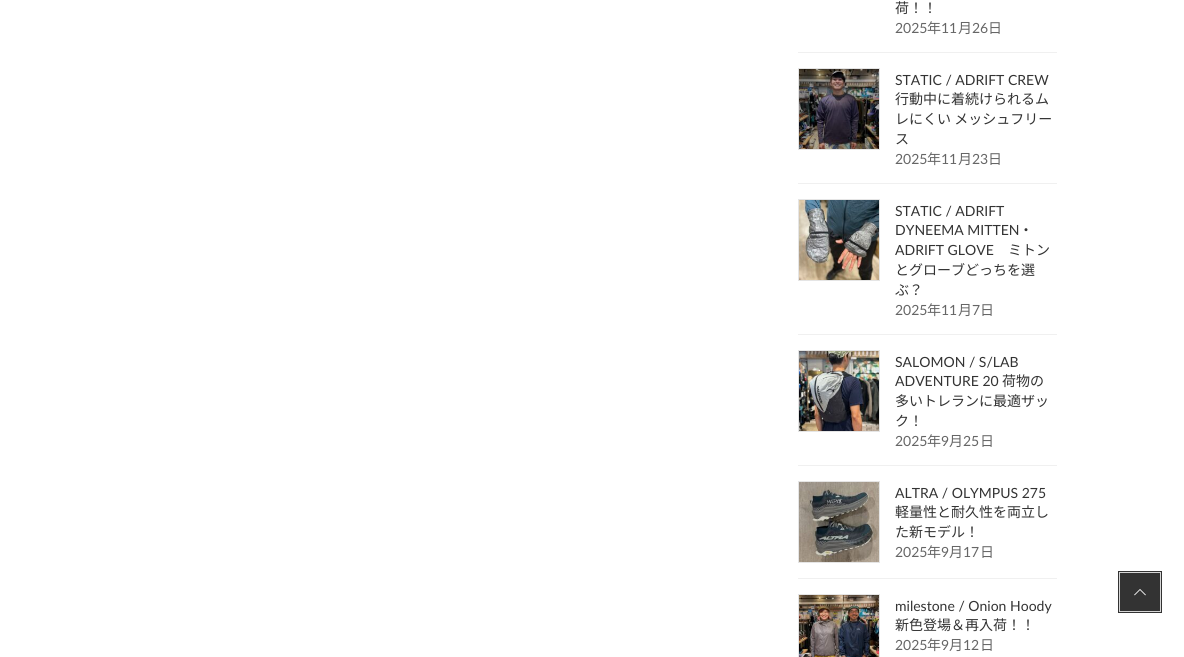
import math
import cairocffi as cairo

surface = cairo.ImageSurface(cairo.FORMAT_RGB24, 1184, 657)
cr = cairo.Context(surface)
options = cairo.FontOptions()
options.set_hint_metrics(cairo.HINT_METRICS_OFF)
options.set_hint_style(cairo.HINT_STYLE_NONE)
cr.set_font_options(options)
cr.set_miter_limit(4)


def use_color(code):
    cr.set_source_rgb(*(v / 255 for v in bytes.fromhex(code[-6:])))


def picture(path, x, y, w, h):
    cr.save()
    cr.set_source_surface(cairo.ImageSurface.create_from_png(path), x, y)
    cr.rectangle(x, y, w, h)
    cr.fill()
    cr.restore()


use_color("#ffffff")
cr.paint()
use_color("#f0f0f0")
cr.rectangle(798, 52, 259, 1)
cr.fill()
cr.select_font_face("Noto Sans JP")
cr.set_font_size(14)
use_color("#333333")
cr.move_to(895, 13)
cr.show_text("荷！！")
cr.select_font_face("Lato")
use_color("#666666")
cr.move_to(895, 33)
cr.show_text("2025")
cr.select_font_face("Noto Sans JP")
cr.move_to(927, 33)
cr.show_text("年")
cr.select_font_face("Lato")
cr.move_to(941, 33)
cr.show_text("11")
cr.select_font_face("Noto Sans JP")
cr.move_to(958, 33)
cr.show_text("月")
cr.select_font_face("Lato")
cr.move_to(972, 33)
cr.show_text("26")
cr.select_font_face("Noto Sans JP")
cr.move_to(988, 33)
cr.show_text("日")
use_color("#f0f0f0")
cr.rectangle(798, 183, 259, 1)
cr.fill()
cr.rectangle(798.5, 68.5, 81, 81)
use_color("#e5e5e5")
cr.set_line_width(1)
cr.stroke()
picture("img1.png", 799, 69, 80, 80)
cr.select_font_face("Lato")
use_color("#333333")
cr.move_to(895, 85)
cr.show_text("STATIC / ADRIFT CREW")
cr.select_font_face("Noto Sans JP")
cr.move_to(895, 104)
cr.show_text("行動中に着続けられるム")
cr.move_to(895, 124)
cr.show_text("レにくい メッシュフリー")
cr.move_to(895, 144)
cr.show_text("ス")
cr.select_font_face("Lato")
use_color("#666666")
cr.move_to(895, 164)
cr.show_text("2025")
cr.select_font_face("Noto Sans JP")
cr.move_to(927, 164)
cr.show_text("年")
cr.select_font_face("Lato")
cr.move_to(941, 164)
cr.show_text("11")
cr.select_font_face("Noto Sans JP")
cr.move_to(958, 164)
cr.show_text("月")
cr.select_font_face("Lato")
cr.move_to(972, 164)
cr.show_text("23")
cr.select_font_face("Noto Sans JP")
cr.move_to(988, 164)
cr.show_text("日")
use_color("#f0f0f0")
cr.rectangle(798, 334, 259, 1)
cr.fill()
cr.rectangle(798.5, 199.5, 81, 81)
use_color("#e5e5e5")
cr.stroke()
picture("img2.png", 799, 200, 80, 80)
cr.select_font_face("Lato")
use_color("#333333")
cr.move_to(895, 216)
cr.show_text("STATIC / ADRIFT")
cr.move_to(895, 235)
cr.show_text("DYNEEMA MITTEN")
cr.select_font_face("Noto Sans JP")
cr.move_to(1019, 235)
cr.show_text("・")
cr.select_font_face("Lato")
cr.move_to(895, 255)
cr.show_text("ADRIFT GLOVE")
cr.select_font_face("Noto Sans JP")
cr.move_to(1008, 255)
cr.show_text("ミトン")
cr.move_to(895, 275)
cr.show_text("とグローブどっちを選")
cr.move_to(895, 295)
cr.show_text("ぶ？")
cr.select_font_face("Lato")
use_color("#666666")
cr.move_to(895, 315)
cr.show_text("2025")
cr.select_font_face("Noto Sans JP")
cr.move_to(927, 315)
cr.show_text("年")
cr.select_font_face("Lato")
cr.move_to(941, 315)
cr.show_text("11")
cr.select_font_face("Noto Sans JP")
cr.move_to(958, 315)
cr.show_text("月")
cr.select_font_face("Lato")
cr.move_to(972, 315)
cr.show_text("7")
cr.select_font_face("Noto Sans JP")
cr.move_to(980, 315)
cr.show_text("日")
use_color("#f0f0f0")
cr.rectangle(798, 465, 259, 1)
cr.fill()
cr.rectangle(798.5, 350.5, 81, 81)
use_color("#e5e5e5")
cr.stroke()
picture("img3.png", 799, 351, 80, 80)
cr.select_font_face("Lato")
use_color("#333333")
cr.move_to(895, 367)
cr.show_text("SALOMON / S/LAB")
cr.move_to(895, 386)
cr.show_text("ADVENTURE 20")
cr.select_font_face("Noto Sans JP")
cr.move_to(1002, 386)
cr.show_text("荷物の")
cr.move_to(895, 406)
cr.show_text("多いトレランに最適ザッ")
cr.move_to(895, 426)
cr.show_text("ク！")
cr.select_font_face("Lato")
use_color("#666666")
cr.move_to(895, 446)
cr.show_text("2025")
cr.select_font_face("Noto Sans JP")
cr.move_to(927, 446)
cr.show_text("年")
cr.select_font_face("Lato")
cr.move_to(941, 446)
cr.show_text("9")
cr.select_font_face("Noto Sans JP")
cr.move_to(949, 446)
cr.show_text("月")
cr.select_font_face("Lato")
cr.move_to(963, 446)
cr.show_text("25")
cr.select_font_face("Noto Sans JP")
cr.move_to(980, 446)
cr.show_text("日")
use_color("#f0f0f0")
cr.rectangle(798, 578, 259, 1)
cr.fill()
cr.rectangle(798.5, 481.5, 81, 81)
use_color("#e5e5e5")
cr.stroke()
picture("img4.png", 799, 482, 80, 80)
cr.select_font_face("Lato")
use_color("#333333")
cr.move_to(895, 498)
cr.show_text("ALTRA / OLYMPUS 275")
cr.select_font_face("Noto Sans JP")
cr.move_to(895, 517)
cr.show_text("軽量性と耐久性を両立し")
cr.move_to(895, 537)
cr.show_text("た新モデル！")
cr.select_font_face("Lato")
use_color("#666666")
cr.move_to(895, 557)
cr.show_text("2025")
cr.select_font_face("Noto Sans JP")
cr.move_to(927, 557)
cr.show_text("年")
cr.select_font_face("Lato")
cr.move_to(941, 557)
cr.show_text("9")
cr.select_font_face("Noto Sans JP")
cr.move_to(949, 557)
cr.show_text("月")
cr.select_font_face("Lato")
cr.move_to(963, 557)
cr.show_text("17")
cr.select_font_face("Noto Sans JP")
cr.move_to(980, 557)
cr.show_text("日")
cr.rectangle(798.5, 594.5, 81, 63)
use_color("#e5e5e5")
cr.stroke()
picture("img5.png", 799, 595, 80, 62)
cr.select_font_face("Lato")
use_color("#333333")
cr.move_to(895, 611)
cr.show_text("milestone / Onion Hoody")
cr.select_font_face("Noto Sans JP")
cr.move_to(895, 630)
cr.show_text("新色登場＆再入荷！！")
cr.select_font_face("Lato")
use_color("#666666")
cr.move_to(895, 650)
cr.show_text("2025")
cr.select_font_face("Noto Sans JP")
cr.move_to(927, 650)
cr.show_text("年")
cr.select_font_face("Lato")
cr.move_to(941, 650)
cr.show_text("9")
cr.select_font_face("Noto Sans JP")
cr.move_to(949, 650)
cr.show_text("月")
cr.select_font_face("Lato")
cr.move_to(963, 650)
cr.show_text("12")
cr.select_font_face("Noto Sans JP")
cr.move_to(980, 650)
cr.show_text("日")
cr.rectangle(1119, 572, 42, 40)
use_color("#333333")
cr.set_line_width(2)
cr.stroke()
cr.rectangle(1119.5, 572.5, 41, 39)
use_color("#d6d6d6")
cr.set_line_width(1)
cr.stroke()
use_color("#333333")
cr.rectangle(1120, 573, 40, 38)
cr.fill()
picture("img6.png", 1134, 589, 12, 7)
surface.write_to_png("result.png")
